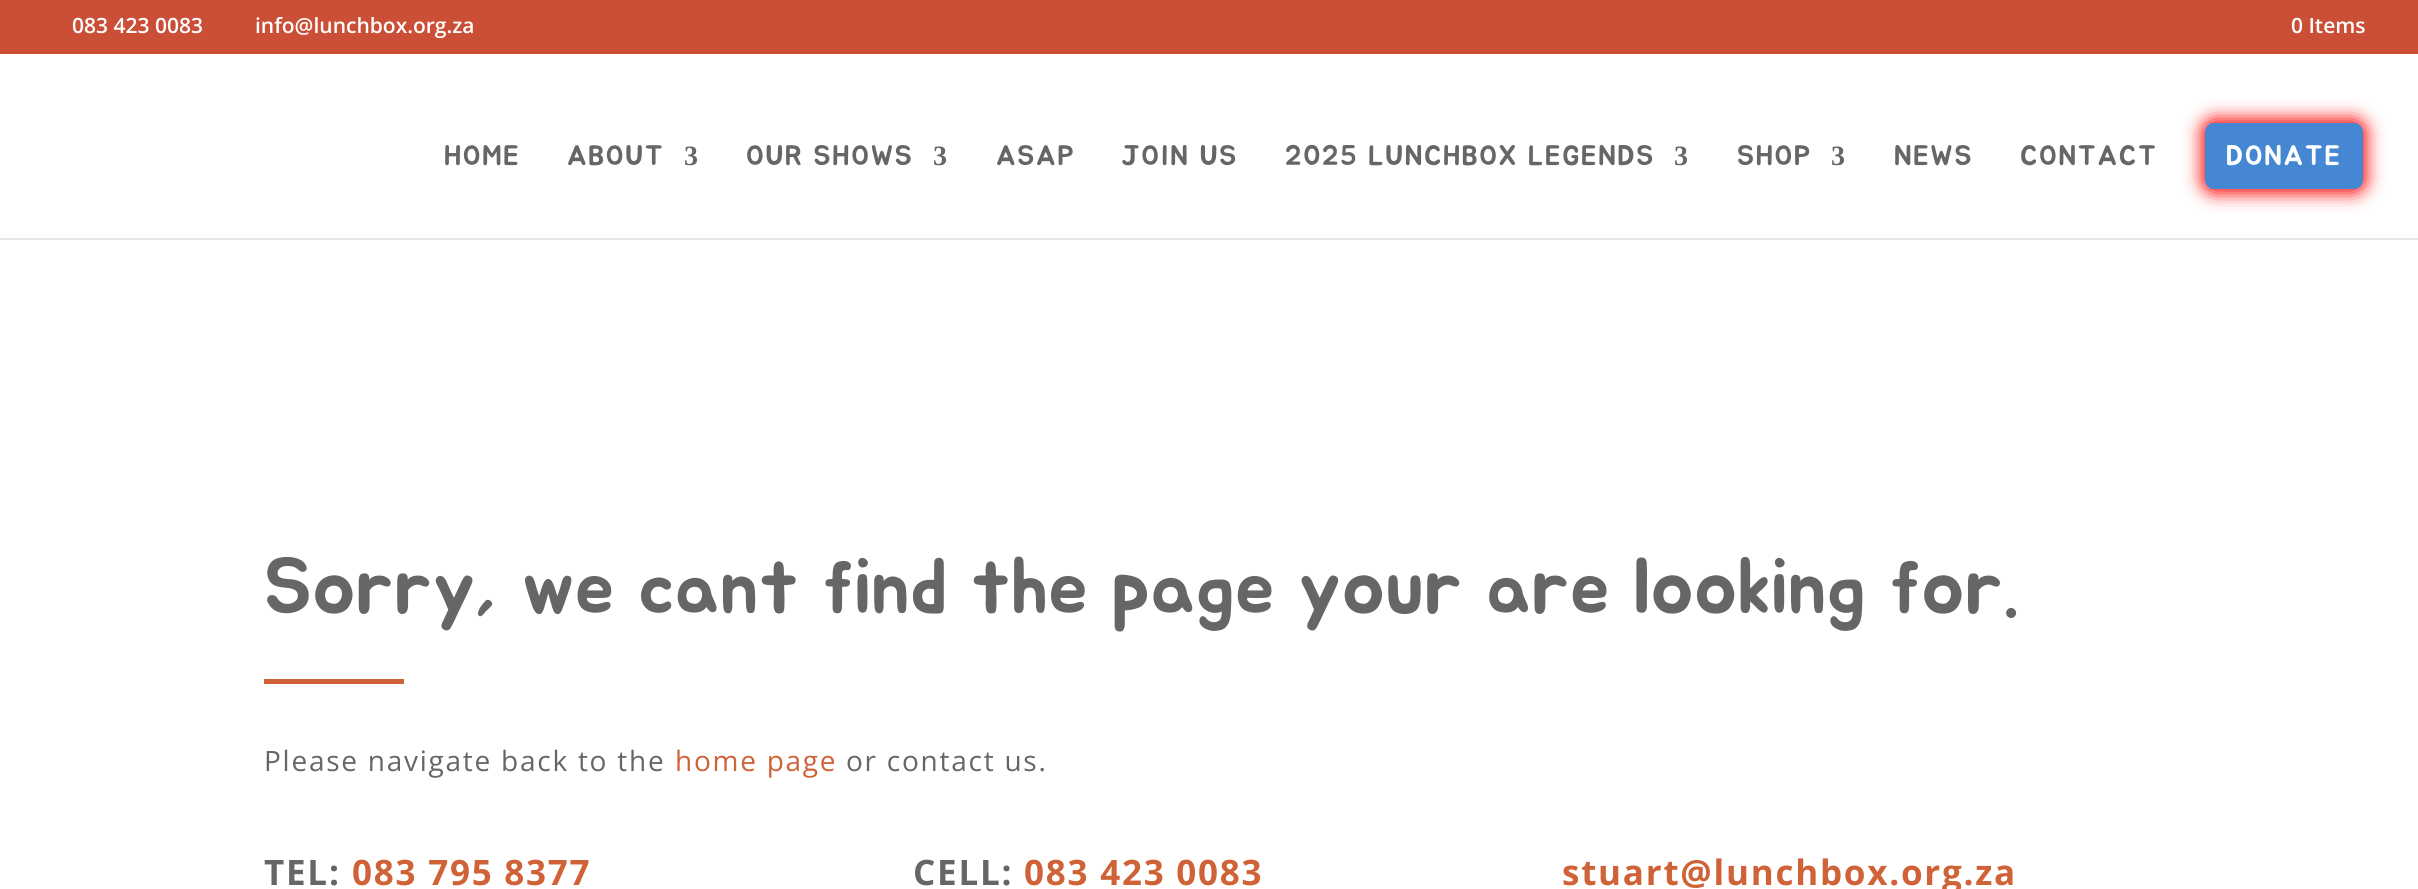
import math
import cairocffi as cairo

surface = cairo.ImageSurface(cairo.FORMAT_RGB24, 2418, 889)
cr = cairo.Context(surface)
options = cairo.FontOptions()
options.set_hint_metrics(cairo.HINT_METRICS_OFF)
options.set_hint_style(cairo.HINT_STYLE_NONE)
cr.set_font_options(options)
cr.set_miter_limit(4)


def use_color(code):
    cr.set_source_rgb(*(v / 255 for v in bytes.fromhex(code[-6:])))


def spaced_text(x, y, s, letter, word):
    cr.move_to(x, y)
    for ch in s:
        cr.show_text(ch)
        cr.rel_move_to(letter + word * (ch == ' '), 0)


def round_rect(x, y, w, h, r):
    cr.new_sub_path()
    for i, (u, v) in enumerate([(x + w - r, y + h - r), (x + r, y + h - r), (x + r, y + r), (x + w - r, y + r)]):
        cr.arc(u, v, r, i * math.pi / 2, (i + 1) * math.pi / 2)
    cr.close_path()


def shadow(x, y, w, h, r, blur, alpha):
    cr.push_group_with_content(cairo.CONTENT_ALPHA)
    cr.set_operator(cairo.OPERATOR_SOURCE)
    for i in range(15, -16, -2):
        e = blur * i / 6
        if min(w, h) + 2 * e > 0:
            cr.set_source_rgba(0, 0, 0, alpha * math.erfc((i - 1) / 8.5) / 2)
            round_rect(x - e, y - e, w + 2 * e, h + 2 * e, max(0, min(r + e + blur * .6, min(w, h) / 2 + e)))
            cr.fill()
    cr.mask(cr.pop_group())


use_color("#ffffff")
cr.paint()
use_color("#cb4e37")
cr.rectangle(0, 0, 2418, 54)
cr.fill()
cr.select_font_face("Open Sans SemiBold")
cr.set_font_size(21)
use_color("#ffffff")
cr.move_to(72, 33)
cr.show_text("083 423 0083")
cr.move_to(255, 33)
cr.show_text("info@lunchbox.org.za")
cr.move_to(2291, 33)
cr.show_text("0 Items")
use_color("#e6e6e6")
cr.new_path()
cr.move_to(0, 238)
cr.line_to(0, 240)
cr.line_to(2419, 240)
cr.line_to(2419, 54)
cr.line_to(2418, 54)
cr.line_to(2418, 238)
cr.close_path()
cr.fill()
cr.select_font_face("Jua")
cr.set_font_size(28)
use_color("#666666")
spaced_text(444, 165, "HOME", 1.75, 0)
spaced_text(567, 165, "ABOUT", 1.75, 0)
cr.select_font_face("Liberation Serif", cairo.FONT_SLANT_NORMAL, cairo.FONT_WEIGHT_BOLD)
spaced_text(684, 165, "3", 1.75, 0)
cr.select_font_face("Jua")
spaced_text(746, 165, "OUR SHOWS", 1.75, 0)
cr.select_font_face("Liberation Serif", cairo.FONT_SLANT_NORMAL, cairo.FONT_WEIGHT_BOLD)
spaced_text(933, 165, "3", 1.75, 0)
cr.select_font_face("Jua")
spaced_text(996, 165, "ASAP", 1.75, 0)
spaced_text(1122, 165, "JOIN US", 1.75, 0)
spaced_text(1285, 165, "2025 LUNCHBOX LEGENDS", 1.75, 0)
cr.select_font_face("Liberation Serif", cairo.FONT_SLANT_NORMAL, cairo.FONT_WEIGHT_BOLD)
spaced_text(1674, 165, "3", 1.75, 0)
cr.select_font_face("Jua")
spaced_text(1737, 165, "SHOP", 1.75, 0)
cr.select_font_face("Liberation Serif", cairo.FONT_SLANT_NORMAL, cairo.FONT_WEIGHT_BOLD)
spaced_text(1831, 165, "3", 1.75, 0)
cr.select_font_face("Jua")
spaced_text(1894, 165, "NEWS", 1.75, 0)
spaced_text(2020, 165, "CONTACT", 1.75, 0)
use_color("#ff0000")
shadow(2202, 119, 164, 74, 12, 9, 1)
use_color("#4687d4")
round_rect(2205, 123, 158, 66, 9)
cr.fill()
use_color("#ffffff")
spaced_text(2226, 165, "DONATE", 1.75, 0)
cr.set_font_size(78.75)
use_color("#666666")
cr.move_to(264, 613)
cr.show_text("Sorry, we cant find the page your are looking for.")
use_color("#cf6237")
cr.rectangle(264, 679, 140, 5)
cr.fill()
cr.select_font_face("Open Sans")
cr.set_font_size(28)
use_color("#666666")
spaced_text(264, 771, "Please navigate back to the", 1.75, 0)
use_color("#cf6237")
spaced_text(675, 771, "home page", 1.75, 0)
use_color("#666666")
spaced_text(846, 771, "or contact us.", 1.75, 0)
cr.select_font_face("Open Sans", cairo.FONT_SLANT_NORMAL, cairo.FONT_WEIGHT_BOLD)
cr.set_font_size(35)
spaced_text(264, 885, "TEL:", 1.75, 0)
use_color("#cf6237")
spaced_text(352, 885, "083 795 8377", 1.75, 0)
use_color("#666666")
spaced_text(913, 885, "CELL:", 1.75, 0)
use_color("#cf6237")
spaced_text(1024, 885, "083 423 0083", 1.75, 0)
spaced_text(1562, 885, "stuart@lunchbox.org.za", 1.75, 0)
surface.write_to_png("result.png")
